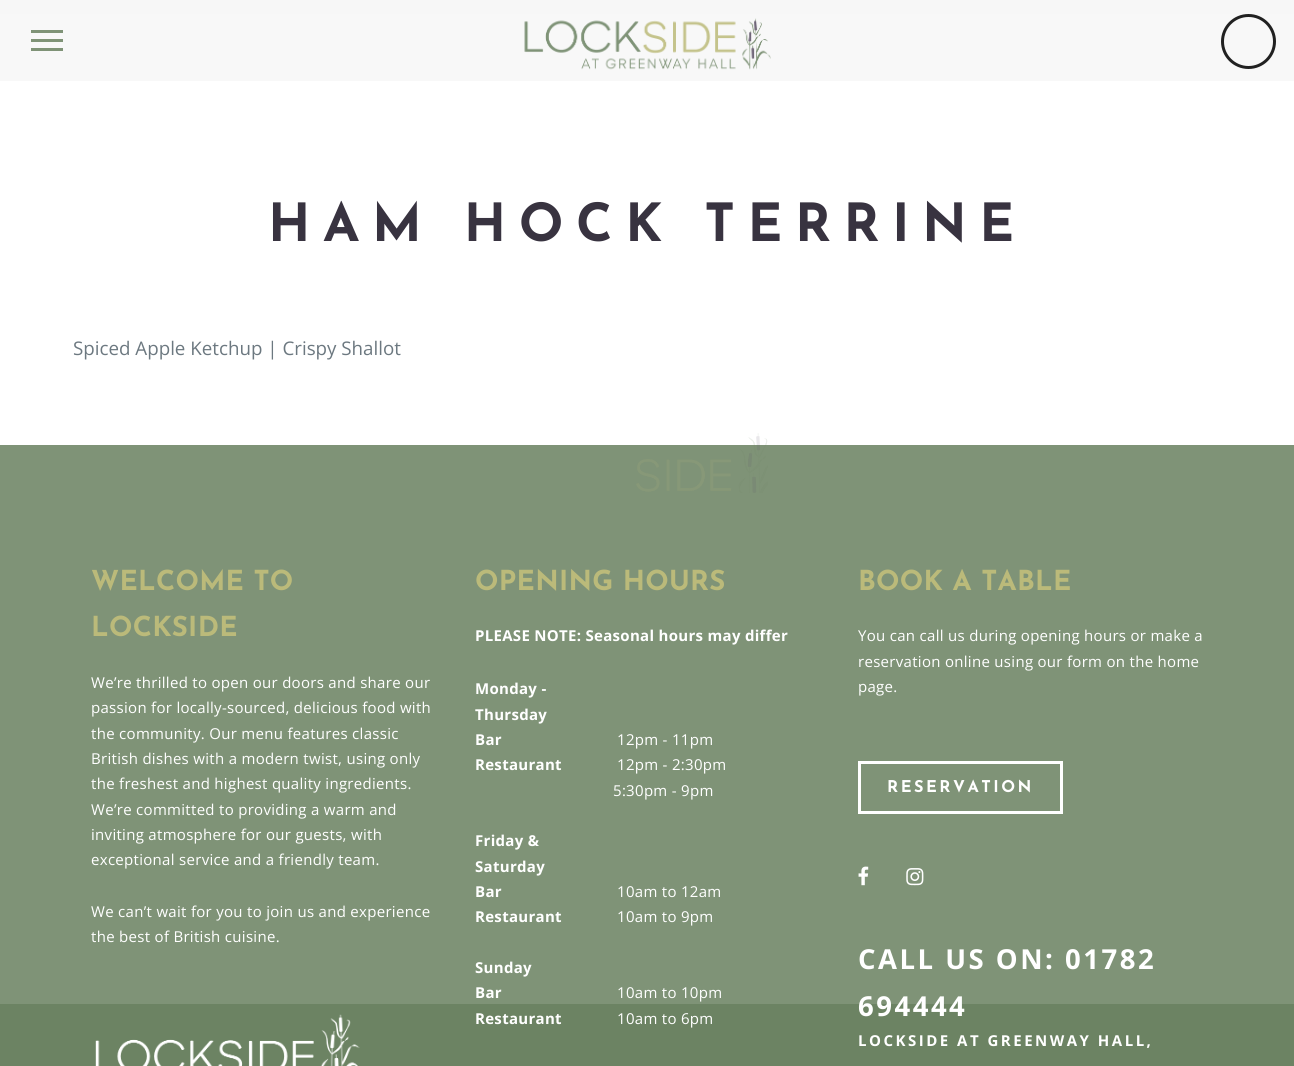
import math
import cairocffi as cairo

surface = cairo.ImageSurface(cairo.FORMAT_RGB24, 1294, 1066)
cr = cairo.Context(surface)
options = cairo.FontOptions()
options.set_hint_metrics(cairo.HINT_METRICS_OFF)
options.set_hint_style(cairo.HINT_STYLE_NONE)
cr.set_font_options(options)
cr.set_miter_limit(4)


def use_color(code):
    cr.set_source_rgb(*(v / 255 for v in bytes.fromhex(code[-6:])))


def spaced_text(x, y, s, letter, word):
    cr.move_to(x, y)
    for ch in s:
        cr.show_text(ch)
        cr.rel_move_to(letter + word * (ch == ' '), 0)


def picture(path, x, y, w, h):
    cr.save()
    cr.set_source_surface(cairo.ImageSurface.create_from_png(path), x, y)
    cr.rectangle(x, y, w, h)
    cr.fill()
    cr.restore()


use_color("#ffffff")
cr.paint()
use_color("#f7f7f7")
cr.rectangle(0, 0, 1294, 81)
cr.fill()
picture("img1.png", 524, 18, 247, 52)
use_color("#6c8363")
cr.rectangle(31, 39, 32, 3)
cr.fill()
cr.rectangle(31, 30, 32, 3)
cr.fill()
cr.rectangle(31, 48, 32, 3)
cr.fill()
cr.arc(1248.5, 41.5, 26, 0, 2 * math.pi)
use_color("#000000")
cr.set_line_width(3)
cr.stroke()
use_color("#6c8363")
cr.rectangle(0, 445, 1294, 621)
cr.fill()
cr.rectangle(859.5, 762.5, 202, 50)
use_color("#ffffff")
cr.stroke()
picture("img4.png", 858, 866, 11, 20)
picture("img5.png", 906, 868, 18, 18)
cr.set_source_rgba(1, 1, 1, 0.13)
cr.rectangle(0, 14, 1294, 990)
cr.fill()
picture("img2.png", 636, 433, 132, 60)
cr.select_font_face("Josefin Sans", cairo.FONT_SLANT_NORMAL, cairo.FONT_WEIGHT_BOLD)
cr.set_font_size(52.5)
use_color("#383340")
spaced_text(268, 241, "HAM HOCK TERRINE", 12.5, 0)
cr.select_font_face("Open Sans")
cr.set_font_size(18.75)
use_color("#6c7880")
cr.move_to(73, 355)
cr.show_text("Spiced Apple Ketchup | Crispy Shallot")
cr.select_font_face("Josefin Sans", cairo.FONT_SLANT_NORMAL, cairo.FONT_WEIGHT_BOLD)
cr.set_font_size(27.5)
use_color("#bbba7a")
spaced_text(91, 590, "WELCOME TO", 0.3, 0)
spaced_text(91, 636, "LOCKSIDE", 0.3, 0)
cr.select_font_face("Open Sans")
cr.set_font_size(15)
use_color("#ffffff")
spaced_text(91, 688, "We’re thrilled to open our doors and share our", 0.3, 0)
spaced_text(91, 713, "passion for locally-sourced, delicious food with", 0.3, 0)
spaced_text(91, 739, "the community. Our menu features classic", 0.3, 0)
spaced_text(91, 764, "British dishes with a modern twist, using only", 0.3, 0)
spaced_text(91, 789, "the freshest and highest quality ingredients.", 0.3, 0)
spaced_text(91, 815, "We’re committed to providing a warm and", 0.3, 0)
spaced_text(91, 840, "inviting atmosphere for our guests, with", 0.3, 0)
spaced_text(91, 865, "exceptional service and a friendly team.", 0.3, 0)
spaced_text(91, 917, "We can’t wait for you to join us and experience", 0.3, 0)
spaced_text(91, 942, "the best of British cuisine.", 0.3, 0)
picture("img3.png", 95, 1014, 265, 52)
cr.select_font_face("Josefin Sans", cairo.FONT_SLANT_NORMAL, cairo.FONT_WEIGHT_BOLD)
cr.set_font_size(27.5)
use_color("#bbba7a")
spaced_text(475, 590, "OPENING HOURS", 0.3, 0)
cr.select_font_face("Open Sans", cairo.FONT_SLANT_NORMAL, cairo.FONT_WEIGHT_BOLD)
cr.set_font_size(15)
use_color("#ffffff")
spaced_text(475, 641, "PLEASE NOTE: Seasonal hours may differ", 0.3, 0)
spaced_text(475, 694, "Monday -", 0.3, 0)
spaced_text(475, 720, "Thursday", 0.3, 0)
spaced_text(475, 745, "Bar", 0.3, 0)
cr.select_font_face("Open Sans")
spaced_text(617, 745, "12pm - 11pm", 0.3, 0)
cr.select_font_face("Open Sans", cairo.FONT_SLANT_NORMAL, cairo.FONT_WEIGHT_BOLD)
spaced_text(475, 770, "Restaurant", 0.3, 0)
cr.select_font_face("Open Sans")
spaced_text(617, 770, "12pm - 2:30pm", 0.3, 0)
spaced_text(613, 796, "5:30pm - 9pm", 0.3, 0)
cr.select_font_face("Open Sans", cairo.FONT_SLANT_NORMAL, cairo.FONT_WEIGHT_BOLD)
spaced_text(475, 846, "Friday &", 0.3, 0)
spaced_text(475, 872, "Saturday", 0.3, 0)
spaced_text(475, 897, "Bar", 0.3, 0)
cr.select_font_face("Open Sans")
spaced_text(617, 897, "10am to 12am", 0.3, 0)
cr.select_font_face("Open Sans", cairo.FONT_SLANT_NORMAL, cairo.FONT_WEIGHT_BOLD)
spaced_text(475, 922, "Restaurant", 0.3, 0)
cr.select_font_face("Open Sans")
spaced_text(617, 922, "10am to 9pm", 0.3, 0)
cr.select_font_face("Open Sans", cairo.FONT_SLANT_NORMAL, cairo.FONT_WEIGHT_BOLD)
spaced_text(475, 973, "Sunday", 0.3, 0)
spaced_text(475, 998, "Bar", 0.3, 0)
cr.select_font_face("Open Sans")
spaced_text(617, 998, "10am to 10pm", 0.3, 0)
cr.select_font_face("Open Sans", cairo.FONT_SLANT_NORMAL, cairo.FONT_WEIGHT_BOLD)
spaced_text(475, 1024, "Restaurant", 0.3, 0)
cr.select_font_face("Open Sans")
spaced_text(617, 1024, "10am to 6pm", 0.3, 0)
cr.select_font_face("Josefin Sans", cairo.FONT_SLANT_NORMAL, cairo.FONT_WEIGHT_BOLD)
cr.set_font_size(27.5)
use_color("#bbba7a")
spaced_text(858, 590, "BOOK A TABLE", 0.3, 0)
cr.select_font_face("Open Sans")
cr.set_font_size(15)
use_color("#ffffff")
spaced_text(858, 641, "You can call us during opening hours or make a", 0.3, 0)
spaced_text(858, 667, "reservation online using our form on the home", 0.3, 0)
spaced_text(858, 692, "page.", 0.3, 0)
cr.select_font_face("Josefin Sans", cairo.FONT_SLANT_NORMAL, cairo.FONT_WEIGHT_BOLD)
cr.set_font_size(16.25)
spaced_text(887, 792, "RESERVATION", 2.5, 0)
cr.select_font_face("Open Sans", cairo.FONT_SLANT_NORMAL, cairo.FONT_WEIGHT_BOLD)
cr.set_font_size(27.5)
spaced_text(858, 969, "CALL US ON: 01782", 2.5, 0)
spaced_text(858, 1016, "694444", 2.5, 0)
cr.set_font_size(15)
spaced_text(858, 1046, "LOCKSIDE AT GREENWAY HALL,", 2.5, 0)
surface.write_to_png("result.png")
